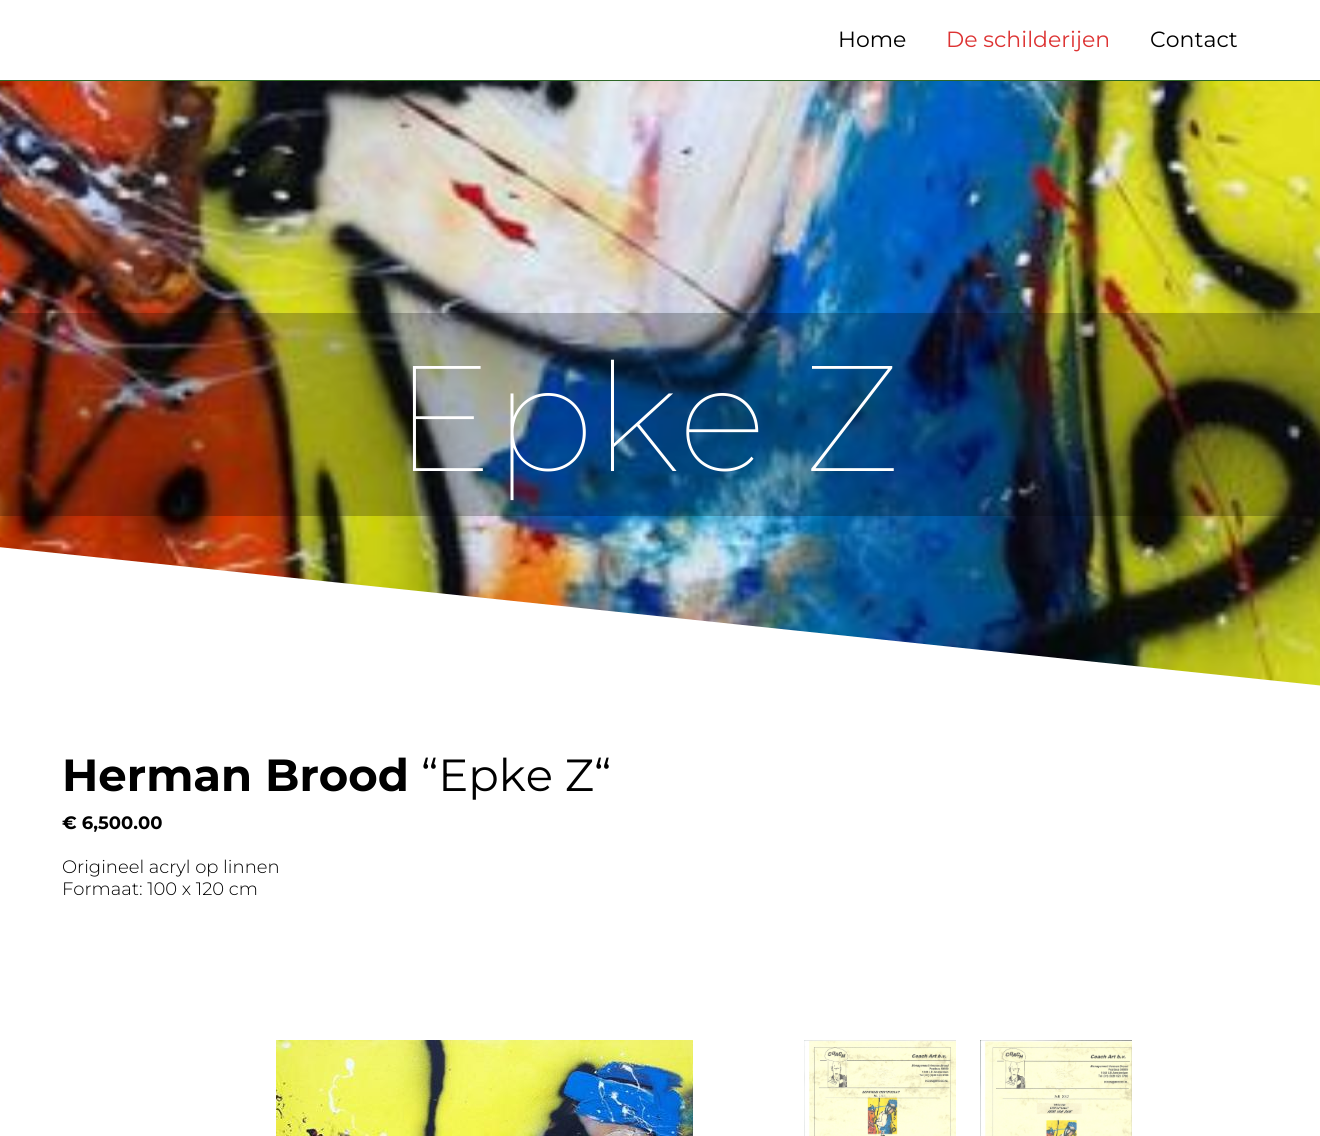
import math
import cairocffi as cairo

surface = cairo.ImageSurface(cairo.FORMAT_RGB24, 1320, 1136)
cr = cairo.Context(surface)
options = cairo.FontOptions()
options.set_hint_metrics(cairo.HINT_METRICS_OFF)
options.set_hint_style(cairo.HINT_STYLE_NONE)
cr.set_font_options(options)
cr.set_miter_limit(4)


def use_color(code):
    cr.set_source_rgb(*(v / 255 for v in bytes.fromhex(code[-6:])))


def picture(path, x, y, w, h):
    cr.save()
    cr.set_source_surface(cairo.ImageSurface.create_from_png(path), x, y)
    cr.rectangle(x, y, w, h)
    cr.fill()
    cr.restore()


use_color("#ffffff")
cr.paint()
use_color("#2c6727")
cr.rectangle(0, 80, 1320, 1)
cr.fill()
cr.select_font_face("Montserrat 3 Thin")
cr.set_font_size(22)
use_color("#000000")
cr.move_to(838, 47)
cr.show_text("Home")
use_color("#dd3333")
cr.move_to(946, 47)
cr.show_text("De schilderijen")
use_color("#000000")
cr.move_to(1150, 47)
cr.show_text("Contact")
picture("img1.png", 0, 81, 1320, 605)
cr.set_source_rgba(0, 0, 0, 0.25)
cr.rectangle(0, 313, 1320, 203)
cr.fill()
cr.select_font_face("Montserrat Thin")
cr.set_font_size(150)
use_color("#ffffff")
cr.move_to(393, 471)
cr.show_text("Epke Z")
cr.save()
cr.rectangle(0, 81, 1320, 650)
cr.clip()
cr.new_path()
cr.move_to(-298, 516)
cr.line_to(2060, 763)
cr.line_to(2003, 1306)
cr.line_to(-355, 1059)
cr.close_path()
cr.fill()
cr.restore()
cr.select_font_face("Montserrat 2 Thin")
cr.set_font_size(45)
use_color("#000000")
cr.move_to(62, 791)
cr.show_text("Herman Brood")
cr.select_font_face("Montserrat 3 Thin")
cr.move_to(421, 791)
cr.show_text("“Epke Z“")
cr.select_font_face("Montserrat 2 Thin")
cr.set_font_size(18)
cr.move_to(62, 829)
cr.show_text("€ 6,500.00")
cr.select_font_face("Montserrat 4 Thin")
cr.move_to(62, 873)
cr.show_text("Origineel acryl op linnen")
cr.move_to(62, 895)
cr.show_text("Formaat: 100 x 120 cm")
picture("img2.png", 276, 1040, 417, 96)
picture("img3.png", 804, 1040, 152, 96)
picture("img4.png", 980, 1040, 152, 96)
surface.write_to_png("result.png")
